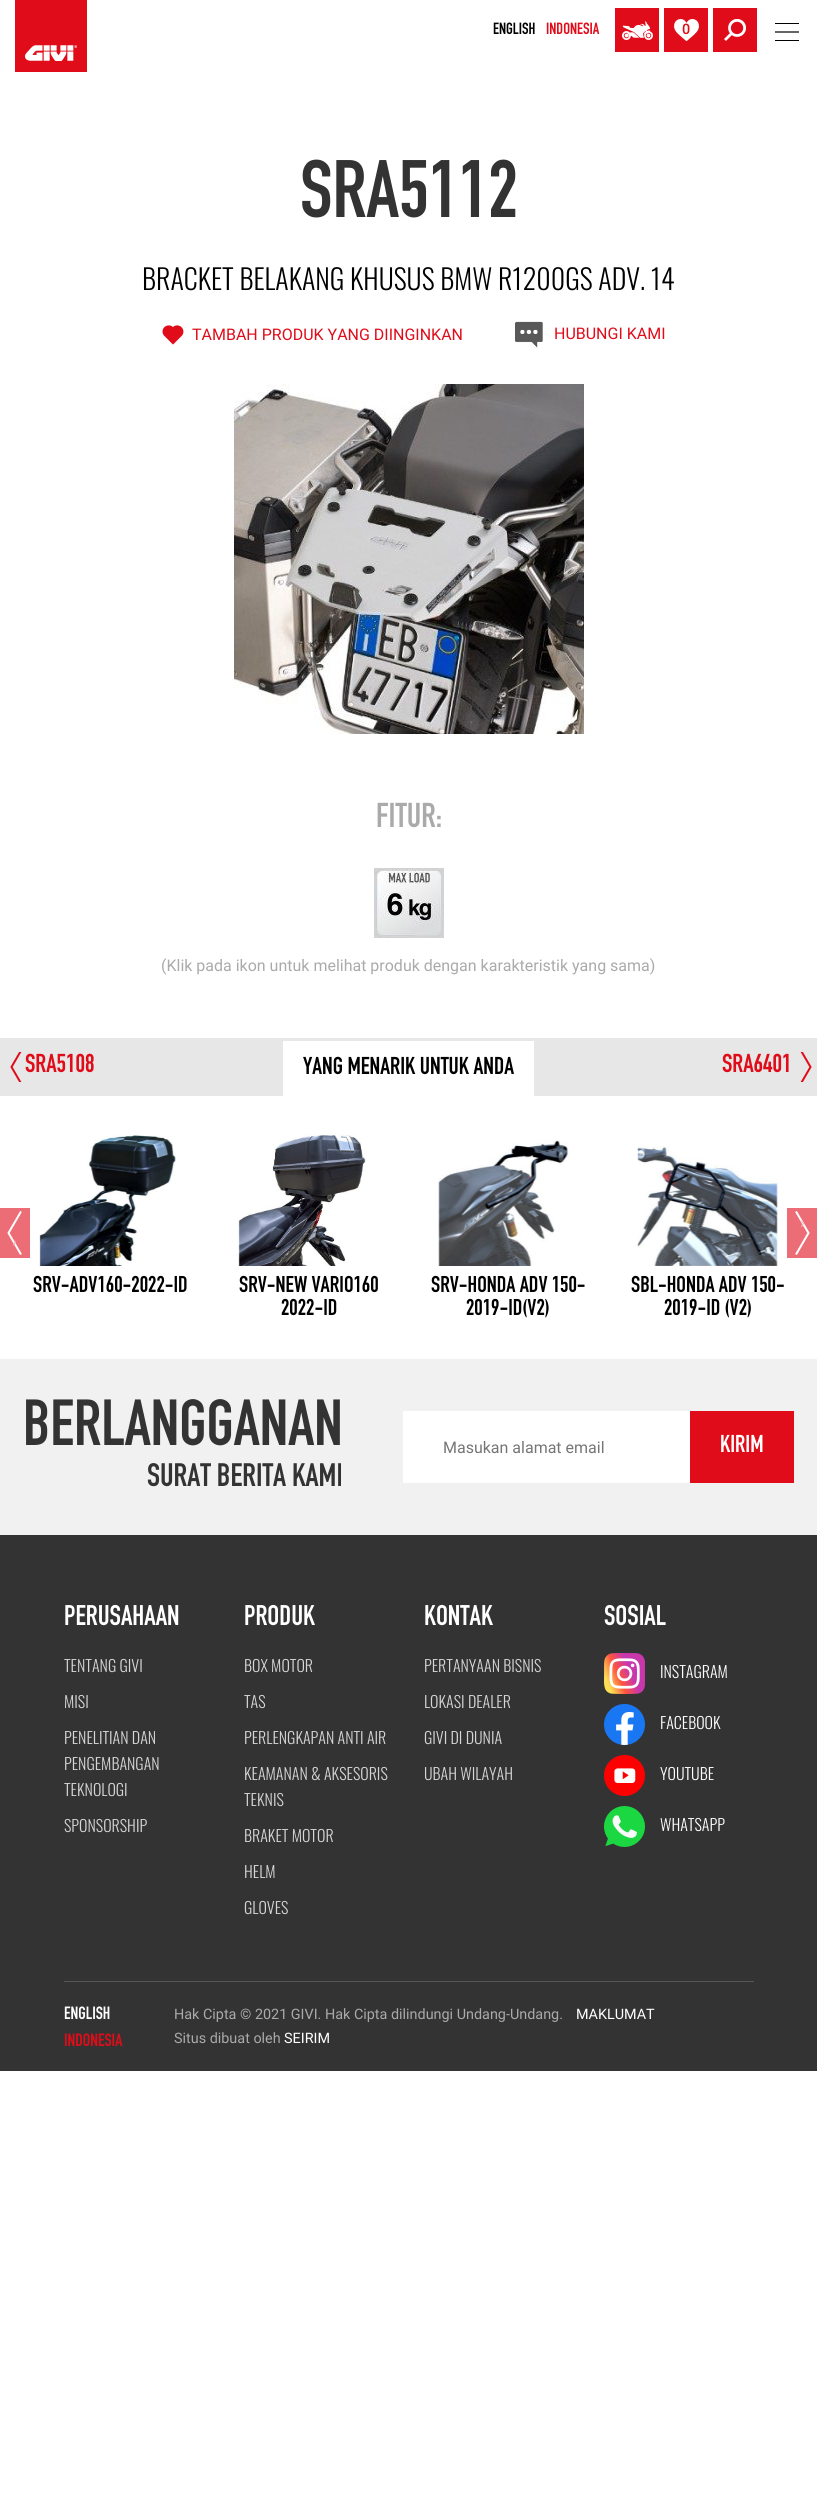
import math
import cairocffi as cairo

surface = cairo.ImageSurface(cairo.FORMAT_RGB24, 817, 2516)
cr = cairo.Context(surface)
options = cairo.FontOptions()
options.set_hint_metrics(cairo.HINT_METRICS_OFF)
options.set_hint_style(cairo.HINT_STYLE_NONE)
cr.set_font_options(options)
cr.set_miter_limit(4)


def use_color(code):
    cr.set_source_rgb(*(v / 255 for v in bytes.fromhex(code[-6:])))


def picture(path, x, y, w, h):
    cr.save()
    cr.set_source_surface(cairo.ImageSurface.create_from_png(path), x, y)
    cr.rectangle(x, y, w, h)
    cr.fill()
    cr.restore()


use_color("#ffffff")
cr.paint()
use_color("#e00c19")
cr.rectangle(15, 0, 72, 72)
cr.fill()
picture("img1.png", 25, 45, 52, 16)
cr.select_font_face("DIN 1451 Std")
cr.set_font_size(16)
use_color("#000000")
cr.move_to(493, 34)
cr.show_text("ENGLISH")
use_color("#e00c19")
cr.move_to(546, 34)
cr.show_text("INDONESIA")
cr.rectangle(615, 8, 44, 44)
cr.fill()
picture("img2.png", 622, 21, 31, 19)
cr.rectangle(664, 8, 44, 44)
cr.fill()
picture("img3.png", 674, 19, 25, 22)
cr.select_font_face("Roboto Medium")
cr.set_font_size(14.4)
cr.move_to(682, 34)
cr.show_text("0")
cr.rectangle(713, 8, 44, 44)
cr.fill()
picture("img4.png", 724, 19, 22, 22)
use_color("#000000")
cr.rectangle(775, 23, 24, 1)
cr.fill()
cr.new_path()
cr.move_to(775, 32)
cr.line_to(799, 32)
cr.set_line_width(1.2)
cr.stroke()
cr.rectangle(775, 40, 24, 1)
cr.fill()
cr.select_font_face("DIN 1451 Std")
cr.set_font_size(80)
use_color("#333333")
cr.move_to(300, 217)
cr.show_text("SRA5112")
cr.select_font_face("Oswald Light")
cr.set_font_size(28)
use_color("#000000")
cr.move_to(142, 290)
cr.show_text("BRACKET BELAKANG KHUSUS BMW R1200GS ADV. 14")
picture("img5.png", 162, 325, 22, 20)
cr.select_font_face("Roboto")
cr.set_font_size(16)
use_color("#e00c19")
cr.move_to(192, 340)
cr.show_text("TAMBAH PRODUK YANG DIINGINKAN")
picture("img6.png", 515, 321, 28, 27)
cr.move_to(554, 339)
cr.show_text("HUBUNGI KAMI")
picture("img7.png", 234, 384, 350, 350)
cr.select_font_face("DIN 1451 Std")
cr.set_font_size(34)
use_color("#aaaaaa")
cr.move_to(376, 827)
cr.show_text("FITUR:")
picture("img8.png", 374, 868, 70, 70)
cr.select_font_face("Roboto")
cr.set_font_size(16)
cr.move_to(161, 971)
cr.show_text("(Klik pada ikon untuk melihat produk dengan karakteristik yang sama)")
use_color("#e7e7e7")
cr.rectangle(0, 1038, 817, 58)
cr.fill()
cr.save()
cr.rectangle(10, 1052, 15, 30)
cr.clip()
cr.new_path()
cr.move_to(11.5, 1067)
cr.line_to(24, 1088.5)
cr.line_to(11.5, 1067)
cr.line_to(24, 1045.5)
cr.close_path()
use_color("#e00c19")
cr.set_line_width(2)
cr.stroke()
cr.restore()
cr.select_font_face("DIN 1451 Std")
cr.set_font_size(25.5)
use_color("#e00c19")
cr.move_to(25, 1072)
cr.show_text("SRA5108")
cr.move_to(722, 1072)
cr.show_text("SRA6401")
cr.save()
cr.rectangle(797, 1052, 15, 30)
cr.clip()
cr.new_path()
cr.move_to(810.5, 1067)
cr.line_to(798, 1045.5)
cr.line_to(810.5, 1067)
cr.line_to(798, 1088.5)
cr.close_path()
cr.set_line_width(2)
cr.stroke()
cr.restore()
use_color("#ffffff")
cr.rectangle(283, 1041, 251, 55)
cr.fill()
cr.set_font_size(24)
use_color("#000000")
cr.move_to(303, 1074)
cr.show_text("YANG MENARIK UNTUK ANDA")
use_color("#ec6d75")
cr.rectangle(787, 1208, 30, 50)
cr.fill()
cr.new_path()
cr.move_to(808.5, 1233)
cr.line_to(796, 1211.5)
cr.line_to(808.5, 1233)
cr.line_to(796, 1254.5)
cr.close_path()
use_color("#ffffff")
cr.set_line_width(2)
cr.stroke()
cr.select_font_face("Roboto")
cr.set_font_size(16)
use_color("#f7bfc2")
cr.move_to(800, 1228)
cr.show_text("›")
use_color("#ec6d75")
cr.rectangle(0, 1208, 30, 50)
cr.fill()
cr.new_path()
cr.move_to(8.5, 1233)
cr.line_to(21, 1254.5)
cr.line_to(8.5, 1233)
cr.line_to(21, 1211.5)
cr.close_path()
use_color("#ffffff")
cr.stroke()
use_color("#f4a9ad")
cr.save()
cr.translate(17, 1238)
cr.rotate(180 * math.pi / 180)
cr.move_to(0, 0)
cr.show_text("‹")
cr.restore()
picture("img9.png", 39, 1135, 137, 131)
cr.select_font_face("DIN 1451 Std")
cr.set_font_size(22.5)
use_color("#000000")
cr.move_to(33, 1292)
cr.show_text("SRV-ADV160-2022-ID")
picture("img10.png", 238, 1133, 128, 133)
cr.move_to(239, 1292)
cr.show_text("SRV-NEW VARIO160")
cr.move_to(281, 1315)
cr.show_text("2022-ID")
picture("img11.png", 438, 1140, 132, 126)
cr.move_to(431, 1292)
cr.show_text("SRV-HONDA ADV 150-")
cr.move_to(466, 1315)
cr.show_text("2019-ID(V2)")
picture("img12.png", 637, 1146, 141, 120)
cr.move_to(631, 1292)
cr.show_text("SBL-HONDA ADV 150-")
cr.move_to(664, 1315)
cr.show_text("2019-ID (V2)")
use_color("#f1f1f1")
cr.rectangle(0, 1359, 817, 176)
cr.fill()
cr.set_font_size(64)
use_color("#333333")
cr.move_to(23, 1445)
cr.show_text("BERLANGGANAN")
cr.set_font_size(32)
cr.move_to(147, 1486)
cr.show_text("SURAT BERITA KAMI")
use_color("#ffffff")
cr.rectangle(403, 1411, 287, 72)
cr.fill()
cr.select_font_face("Roboto")
cr.set_font_size(16)
use_color("#757575")
cr.move_to(443, 1453)
cr.show_text("Masukan alamat email")
use_color("#e00c19")
cr.rectangle(690, 1411, 104, 72)
cr.fill()
cr.select_font_face("DIN 1451 Std")
cr.set_font_size(24)
use_color("#ffffff")
cr.move_to(720, 1452)
cr.show_text("KIRIM")
use_color("#333333")
cr.rectangle(0, 1535, 817, 536)
cr.fill()
use_color("#555555")
cr.rectangle(64, 1981, 690, 1)
cr.fill()
cr.set_font_size(28)
use_color("#ffffff")
cr.move_to(64, 1625)
cr.show_text("PERUSAHAAN")
cr.select_font_face("Oswald Light")
cr.set_font_size(16)
use_color("#d6d6d6")
cr.move_to(64, 1672)
cr.show_text("TENTANG GIVI")
cr.move_to(64, 1708)
cr.show_text("MISI")
cr.move_to(64, 1744)
cr.show_text("PENELITIAN DAN")
cr.move_to(64, 1770)
cr.show_text("PENGEMBANGAN")
cr.move_to(64, 1796)
cr.show_text("TEKNOLOGI")
cr.move_to(64, 1832)
cr.show_text("SPONSORSHIP")
cr.select_font_face("DIN 1451 Std")
cr.set_font_size(28)
use_color("#ffffff")
cr.move_to(244, 1625)
cr.show_text("PRODUK")
cr.select_font_face("Oswald Light")
cr.set_font_size(16)
use_color("#d6d6d6")
cr.move_to(244, 1672)
cr.show_text("BOX MOTOR")
cr.move_to(244, 1708)
cr.show_text("TAS")
cr.move_to(244, 1744)
cr.show_text("PERLENGKAPAN ANTI AIR")
cr.move_to(244, 1780)
cr.show_text("KEAMANAN & AKSESORIS")
cr.move_to(244, 1806)
cr.show_text("TEKNIS")
cr.move_to(244, 1842)
cr.show_text("BRAKET MOTOR")
cr.move_to(244, 1878)
cr.show_text("HELM")
cr.move_to(244, 1914)
cr.show_text("GLOVES")
cr.select_font_face("DIN 1451 Std")
cr.set_font_size(28)
use_color("#ffffff")
cr.move_to(424, 1625)
cr.show_text("KONTAK")
cr.select_font_face("Oswald Light")
cr.set_font_size(16)
use_color("#d6d6d6")
cr.move_to(424, 1672)
cr.show_text("PERTANYAAN BISNIS")
cr.move_to(424, 1708)
cr.show_text("LOKASI DEALER")
cr.move_to(424, 1744)
cr.show_text("GIVI DI DUNIA")
cr.move_to(424, 1780)
cr.show_text("UBAH WILAYAH")
cr.select_font_face("DIN 1451 Std")
cr.set_font_size(28)
use_color("#ffffff")
cr.move_to(604, 1625)
cr.show_text("SOSIAL")
picture("img13.png", 604, 1653, 41, 41)
cr.select_font_face("Oswald Light")
cr.set_font_size(16)
cr.move_to(660, 1678)
cr.show_text("INSTAGRAM")
picture("img14.png", 604, 1704, 41, 41)
cr.move_to(660, 1729)
cr.show_text("FACEBOOK")
picture("img15.png", 604, 1755, 41, 41)
cr.move_to(660, 1780)
cr.show_text("YOUTUBE")
picture("img16.png", 604, 1806, 41, 41)
cr.move_to(660, 1831)
cr.show_text("WHATSAPP")
cr.select_font_face("DIN 1451 Std")
cr.set_font_size(17.5)
cr.move_to(64, 2019)
cr.show_text("ENGLISH")
use_color("#e00c19")
cr.move_to(64, 2046)
cr.show_text("INDONESIA")
cr.select_font_face("Roboto")
cr.set_font_size(14.4)
use_color("#aaaaaa")
cr.move_to(174, 2019)
cr.show_text("Hak Cipta © 2021 GIVI. Hak Cipta dilindungi Undang-Undang.")
use_color("#ffffff")
cr.move_to(576, 2019)
cr.show_text("MAKLUMAT")
use_color("#aaaaaa")
cr.move_to(174, 2043)
cr.show_text("Situs dibuat oleh")
use_color("#ffffff")
cr.move_to(284, 2043)
cr.show_text("SEIRIM")
surface.write_to_png("result.png")
